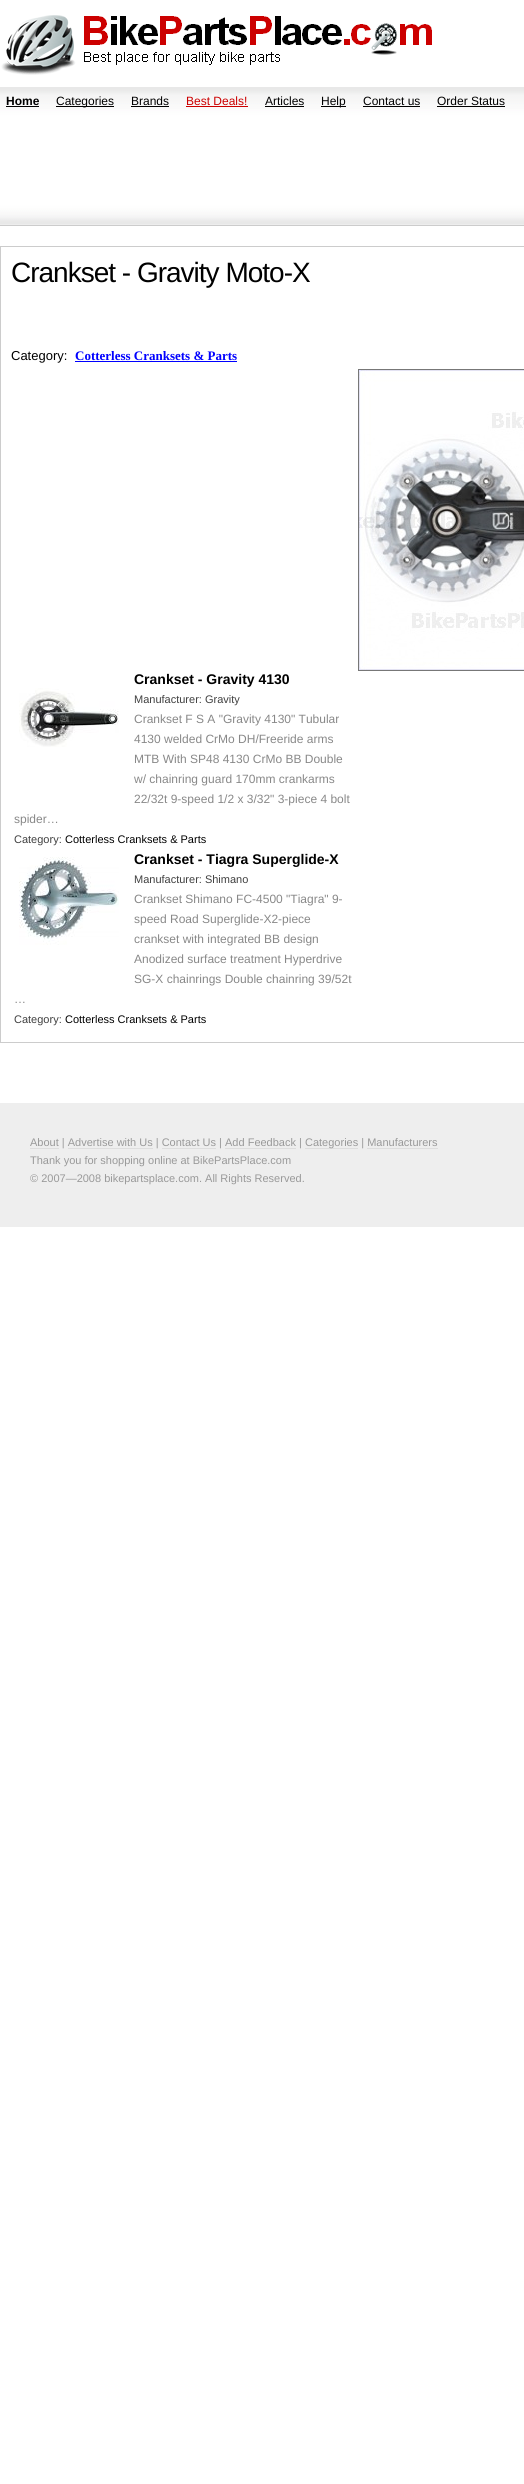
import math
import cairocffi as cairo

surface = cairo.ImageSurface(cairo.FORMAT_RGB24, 524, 2484)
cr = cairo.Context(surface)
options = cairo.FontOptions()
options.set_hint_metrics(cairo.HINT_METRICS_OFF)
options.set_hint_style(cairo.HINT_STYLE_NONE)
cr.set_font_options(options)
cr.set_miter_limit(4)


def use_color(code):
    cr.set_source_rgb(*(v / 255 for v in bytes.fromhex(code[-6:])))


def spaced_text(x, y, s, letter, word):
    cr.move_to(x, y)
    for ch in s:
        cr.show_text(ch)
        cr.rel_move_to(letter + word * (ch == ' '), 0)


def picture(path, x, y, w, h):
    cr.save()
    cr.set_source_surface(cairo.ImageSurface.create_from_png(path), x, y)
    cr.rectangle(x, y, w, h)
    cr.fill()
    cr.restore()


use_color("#ffffff")
cr.paint()
picture("img1.png", 1, 15, 431, 60)
picture("img2.png", 0, 87, 524, 138)
use_color("#cccccc")
cr.rectangle(0, 225, 524, 1)
cr.fill()
cr.select_font_face("Liberation Sans", cairo.FONT_SLANT_NORMAL, cairo.FONT_WEIGHT_BOLD)
cr.set_font_size(12)
use_color("#000000")
cr.move_to(6, 105)
cr.show_text("Home")
cr.rectangle(6, 106, 33, 1)
cr.fill()
cr.rectangle(56, 106, 58, 1)
cr.fill()
cr.select_font_face("Liberation Sans")
cr.move_to(56, 105)
cr.show_text("Categories")
cr.move_to(131, 105)
cr.show_text("Brands")
cr.rectangle(131, 106, 38, 1)
cr.fill()
use_color("#cc0000")
cr.move_to(186, 105)
cr.show_text("Best Deals!")
cr.rectangle(186, 106, 62, 1)
cr.fill()
use_color("#000000")
cr.move_to(265, 105)
cr.show_text("Articles")
cr.rectangle(265, 106, 39, 1)
cr.fill()
cr.rectangle(321, 106, 25, 1)
cr.fill()
cr.move_to(321, 105)
cr.show_text("Help")
cr.move_to(363, 105)
cr.show_text("Contact us")
cr.rectangle(363, 106, 57, 1)
cr.fill()
cr.move_to(437, 105)
cr.show_text("Order Status")
cr.rectangle(437, 106, 68, 1)
cr.fill()
cr.rectangle(0.5, 246.5, 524, 796)
use_color("#cccccc")
cr.set_line_width(1)
cr.stroke()
cr.set_font_size(28)
use_color("#000000")
spaced_text(11, 282, "Crankset - Gravity Moto-X", -1, 0)
cr.set_font_size(13)
cr.move_to(11, 360)
cr.show_text("Category:")
cr.select_font_face("Liberation Serif", cairo.FONT_SLANT_NORMAL, cairo.FONT_WEIGHT_BOLD)
use_color("#0000ff")
cr.move_to(75, 360)
cr.show_text("Cotterless Cranksets & Parts")
cr.rectangle(75, 361, 162, 1)
cr.fill()
cr.rectangle(358.5, 369.5, 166, 301)
use_color("#777777")
cr.stroke()
picture("img3.png", 359, 370, 165, 300)
cr.select_font_face("Liberation Sans", cairo.FONT_SLANT_NORMAL, cairo.FONT_WEIGHT_BOLD)
cr.set_font_size(14)
use_color("#000000")
cr.move_to(134, 684)
cr.show_text("Crankset - Gravity 4130")
picture("img4.png", 19, 688, 100, 59)
cr.select_font_face("Liberation Sans")
cr.set_font_size(11)
use_color("#404040")
cr.move_to(134, 703)
cr.show_text("Manufacturer: Gravity")
cr.set_font_size(12)
use_color("#888888")
cr.move_to(134, 723)
cr.show_text("Crankset F S A \"Gravity 4130\" Tubular")
cr.move_to(134, 743)
cr.show_text("4130 welded CrMo DH/Freeride arms")
cr.move_to(134, 763)
cr.show_text("MTB With SP48 4130 CrMo BB Double")
cr.move_to(134, 783)
cr.show_text("w/ chainring guard 170mm crankarms")
cr.move_to(134, 803)
cr.show_text("22/32t 9-speed 1/2 x 3/32\" 3-piece 4 bolt")
cr.move_to(14, 823)
cr.show_text("spider…")
cr.set_font_size(11)
use_color("#404040")
cr.move_to(14, 843)
cr.show_text("Category:")
use_color("#000000")
cr.move_to(65, 843)
cr.show_text("Cotterless Cranksets & Parts")
picture("img5.png", 19, 857, 100, 88)
cr.select_font_face("Liberation Sans", cairo.FONT_SLANT_NORMAL, cairo.FONT_WEIGHT_BOLD)
cr.set_font_size(14)
cr.move_to(134, 864)
cr.show_text("Crankset - Tiagra Superglide-X")
cr.select_font_face("Liberation Sans")
cr.set_font_size(11)
use_color("#404040")
cr.move_to(134, 883)
cr.show_text("Manufacturer: Shimano")
cr.set_font_size(12)
use_color("#888888")
cr.move_to(134, 903)
cr.show_text("Crankset Shimano FC-4500 \"Tiagra\" 9-")
cr.move_to(134, 923)
cr.show_text("speed Road Superglide-X2-piece")
cr.move_to(134, 943)
cr.show_text("crankset with integrated BB design")
cr.move_to(134, 963)
cr.show_text("Anodized surface treatment Hyperdrive")
cr.move_to(134, 983)
cr.show_text("SG-X chainrings Double chainring 39/52t")
cr.move_to(14, 1003)
cr.show_text("…")
cr.set_font_size(11)
use_color("#404040")
cr.move_to(14, 1023)
cr.show_text("Category:")
use_color("#000000")
cr.move_to(65, 1023)
cr.show_text("Cotterless Cranksets & Parts")
use_color("#eeeeee")
cr.rectangle(0, 1103, 524, 124)
cr.fill()
use_color("#dddddd")
cr.rectangle(30, 1148, 29, 1)
cr.fill()
use_color("#999999")
cr.move_to(30, 1146)
cr.show_text("About | Advertise with Us | Contact Us | Add Feedback |")
use_color("#dddddd")
cr.rectangle(305, 1148, 53, 1)
cr.fill()
use_color("#999999")
cr.move_to(305, 1146)
cr.show_text("Categories | Manufacturers")
use_color("#dddddd")
cr.rectangle(68, 1148, 85, 1)
cr.fill()
cr.rectangle(162, 1148, 54, 1)
cr.fill()
cr.rectangle(225, 1148, 71, 1)
cr.fill()
cr.rectangle(367, 1148, 71, 1)
cr.fill()
use_color("#999999")
cr.move_to(30, 1164)
cr.show_text("Thank you for shopping online at BikePartsPlace.com")
cr.move_to(30, 1182)
cr.show_text("© 2007—2008 bikepartsplace.com. All Rights Reserved.")
surface.write_to_png("result.png")
